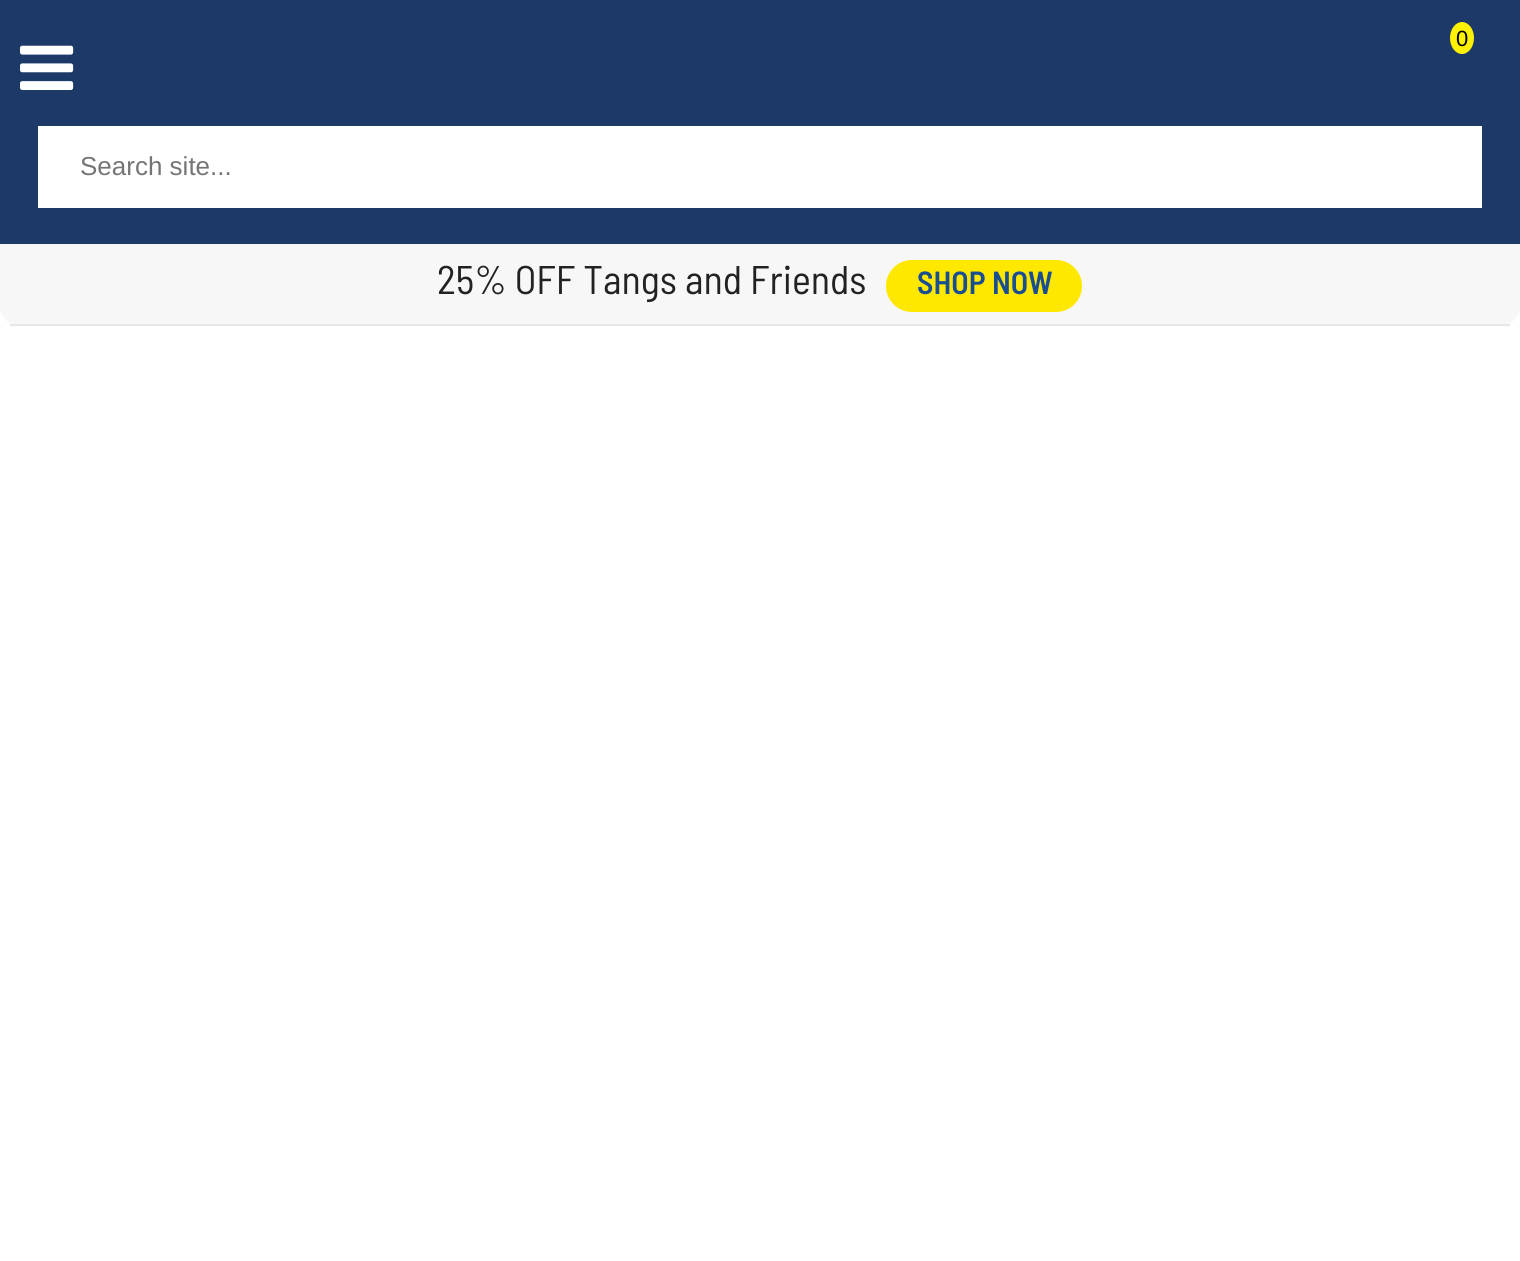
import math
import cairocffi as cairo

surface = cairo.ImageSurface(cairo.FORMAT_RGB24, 1520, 1261)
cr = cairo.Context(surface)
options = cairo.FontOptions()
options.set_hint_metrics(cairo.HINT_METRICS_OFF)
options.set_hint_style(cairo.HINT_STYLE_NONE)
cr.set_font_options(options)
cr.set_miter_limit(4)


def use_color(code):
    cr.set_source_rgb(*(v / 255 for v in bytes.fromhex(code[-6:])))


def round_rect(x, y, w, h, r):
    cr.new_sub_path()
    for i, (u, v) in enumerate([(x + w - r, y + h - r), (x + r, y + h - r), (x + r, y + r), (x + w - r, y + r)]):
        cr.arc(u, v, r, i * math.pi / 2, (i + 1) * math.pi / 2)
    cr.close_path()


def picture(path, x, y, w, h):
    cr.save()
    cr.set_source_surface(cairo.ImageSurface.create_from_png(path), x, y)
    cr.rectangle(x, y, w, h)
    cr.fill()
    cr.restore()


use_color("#ffffff")
cr.paint()
use_color("#1c3967")
cr.rectangle(0, 0, 1520, 244)
cr.fill()
use_color("#fff200")
cr.new_path()
cr.move_to(1462, 22)
cr.curve_to(1468.5, 22, 1474, 29, 1474, 38)
cr.curve_to(1474, 47, 1468.5, 54, 1462, 54)
cr.curve_to(1455.5, 54, 1450, 47, 1450, 38)
cr.curve_to(1450, 29, 1455.5, 22, 1462, 22)
cr.close_path()
cr.fill()
cr.select_font_face("Liberation Sans")
cr.set_font_size(22)
use_color("#000000")
cr.move_to(1456, 46)
cr.show_text("0")
picture("img1.png", 20, 45, 54, 45)
use_color("#ffffff")
cr.rectangle(38, 126, 1444, 82)
cr.fill()
cr.set_font_size(26)
use_color("#757575")
cr.move_to(80, 175)
cr.show_text("Search site...")
use_color("#f7f7f7")
cr.new_path()
cr.move_to(0, 244)
cr.line_to(1520, 244)
cr.line_to(1520, 306)
cr.curve_to(1520, 317, 1511, 326, 1500, 326)
cr.line_to(20, 326)
cr.curve_to(9, 326, 0, 317, 0, 306)
cr.close_path()
cr.fill()
use_color("#e7e7e7")
cr.rectangle(10, 324, 1500, 2)
cr.fill()
cr.select_font_face("Barlow Semi Condensed")
cr.set_font_size(40)
use_color("#222222")
cr.move_to(437, 294)
cr.show_text("25% OFF Tangs and Friends")
use_color("#ffe800")
round_rect(886, 260, 196, 52, 26)
cr.fill()
cr.select_font_face("Barlow Semi Condensed SemiBold")
cr.set_font_size(32)
use_color("#194f90")
cr.move_to(917, 294)
cr.show_text("SHOP NOW")
surface.write_to_png("result.png")
